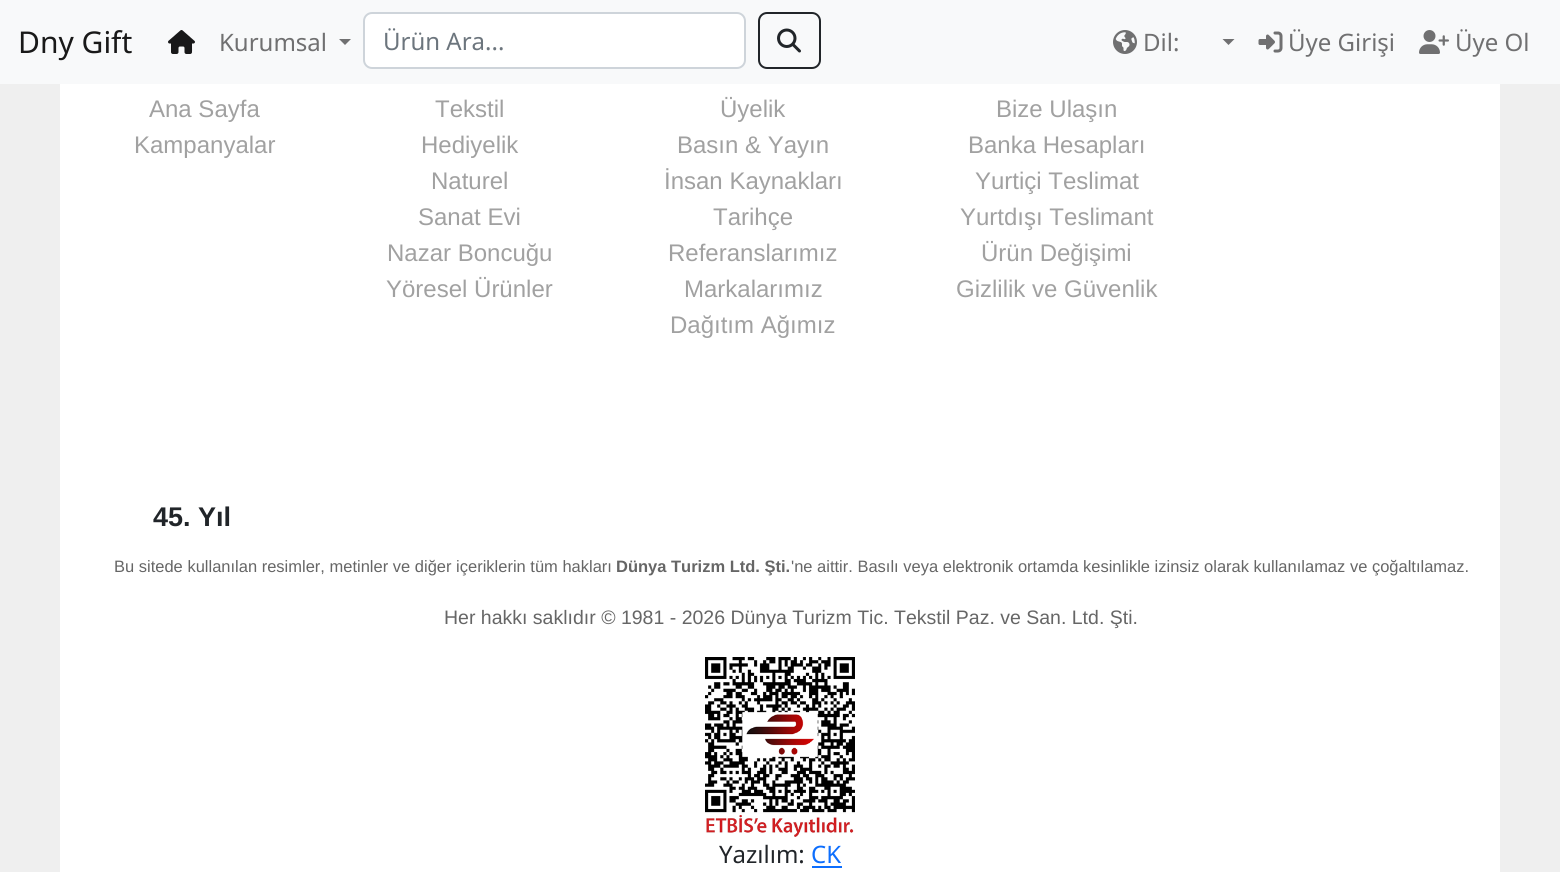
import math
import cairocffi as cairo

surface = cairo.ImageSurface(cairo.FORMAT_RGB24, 1560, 872)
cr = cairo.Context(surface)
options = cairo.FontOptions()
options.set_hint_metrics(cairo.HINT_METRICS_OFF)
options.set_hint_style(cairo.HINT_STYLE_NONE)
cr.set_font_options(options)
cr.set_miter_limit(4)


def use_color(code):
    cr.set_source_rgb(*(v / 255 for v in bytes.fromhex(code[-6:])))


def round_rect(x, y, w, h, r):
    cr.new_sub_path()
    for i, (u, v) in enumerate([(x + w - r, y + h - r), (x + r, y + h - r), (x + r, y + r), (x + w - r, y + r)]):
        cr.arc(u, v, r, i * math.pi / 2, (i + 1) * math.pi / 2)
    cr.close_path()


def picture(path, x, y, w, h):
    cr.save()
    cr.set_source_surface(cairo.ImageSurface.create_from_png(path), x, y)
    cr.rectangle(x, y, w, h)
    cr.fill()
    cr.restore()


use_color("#efefef")
cr.paint()
use_color("#f8f9fa")
cr.rectangle(0, 0, 1560, 84)
cr.fill()
cr.select_font_face("Noto Sans")
cr.set_font_size(30)
use_color("#191919")
cr.move_to(18, 53)
cr.show_text("Dny Gift")
picture("img1.png", 168, 30, 27, 24)
cr.set_font_size(24)
use_color("#707071")
cr.move_to(219, 51)
cr.show_text("Kurumsal")
cr.new_path()
cr.move_to(339, 39)
cr.line_to(351, 39)
cr.line_to(345, 45)
cr.close_path()
cr.fill()
use_color("#ffffff")
round_rect(364, 13, 381, 55, 8)
cr.fill_preserve()
use_color("#ced4da")
cr.stroke()
use_color("#6c757d")
cr.move_to(383, 50)
cr.show_text("Ürün Ara...")
round_rect(759, 13, 61, 55, 8)
use_color("#212529")
cr.stroke()
picture("img2.png", 777, 28, 24, 25)
picture("img3.png", 1113, 30, 24, 24)
use_color("#707071")
cr.move_to(1143, 51)
cr.show_text("Dil:")
cr.new_path()
cr.move_to(1222.5, 39)
cr.line_to(1234.5, 39)
cr.line_to(1228.5, 45)
cr.close_path()
cr.fill()
picture("img4.png", 1258, 31, 25, 22)
cr.move_to(1288, 51)
cr.show_text("Üye Girişi")
picture("img5.png", 1419, 30, 30, 24)
cr.move_to(1455, 51)
cr.show_text("Üye Ol")
use_color("#ffffff")
cr.rectangle(60, 84, 1440, 788)
cr.fill()
cr.select_font_face("Liberation Sans")
use_color("#a1a1a1")
cr.move_to(149, 117)
cr.show_text("Ana Sayfa")
cr.move_to(134, 153)
cr.show_text("Kampanyalar")
cr.move_to(435, 117)
cr.show_text("Tekstil")
cr.move_to(421, 153)
cr.show_text("Hediyelik")
cr.move_to(431, 189)
cr.show_text("Naturel")
cr.move_to(418, 225)
cr.show_text("Sanat Evi")
cr.move_to(387, 261)
cr.show_text("Nazar Boncuğu")
cr.move_to(386, 297)
cr.show_text("Yöresel Ürünler")
cr.move_to(720, 117)
cr.show_text("Üyelik")
cr.move_to(677, 153)
cr.show_text("Basın & Yayın")
cr.move_to(664, 189)
cr.show_text("İnsan Kaynakları")
cr.move_to(713, 225)
cr.show_text("Tarihçe")
cr.move_to(668, 261)
cr.show_text("Referanslarımız")
cr.move_to(684, 297)
cr.show_text("Markalarımız")
cr.move_to(670, 333)
cr.show_text("Dağıtım Ağımız")
cr.move_to(996, 117)
cr.show_text("Bize Ulaşın")
cr.move_to(968, 153)
cr.show_text("Banka Hesapları")
cr.move_to(975, 189)
cr.show_text("Yurtiçi Teslimat")
cr.move_to(960, 225)
cr.show_text("Yurtdışı Teslimant")
cr.move_to(981, 261)
cr.show_text("Ürün Değişimi")
cr.move_to(956, 297)
cr.show_text("Gizlilik ve Güvenlik")
cr.select_font_face("Liberation Sans", cairo.FONT_SLANT_NORMAL, cairo.FONT_WEIGHT_BOLD)
cr.set_font_size(27)
use_color("#212529")
cr.move_to(153, 526)
cr.show_text("45. Yıl")
cr.select_font_face("Liberation Sans")
cr.set_font_size(16.5)
use_color("#666666")
cr.move_to(114, 572)
cr.show_text("Bu sitede kullanılan resimler, metinler ve diğer içeriklerin tüm hakları")
cr.select_font_face("Liberation Sans", cairo.FONT_SLANT_NORMAL, cairo.FONT_WEIGHT_BOLD)
cr.move_to(616, 572)
cr.show_text("Dünya Turizm Ltd. Şti.")
cr.select_font_face("Liberation Sans")
cr.move_to(791, 572)
cr.show_text("'ne aittir. Basılı veya elektronik ortamda kesinlikle izinsiz olarak kullanılamaz ve çoğaltılamaz.")
cr.set_font_size(19.5)
cr.move_to(444, 624)
cr.show_text("Her hakkı saklıdır © 1981 - 2026 Dünya Turizm Tic. Tekstil Paz. ve San. Ltd. Şti.")
picture("img6.png", 705, 657, 150, 180)
cr.select_font_face("Noto Sans")
cr.set_font_size(24)
use_color("#212529")
cr.move_to(719, 863)
cr.show_text("Yazılım:")
use_color("#0d6efd")
cr.move_to(811, 863)
cr.show_text("CK")
cr.rectangle(812, 866, 30, 2)
cr.fill()
surface.write_to_png("result.png")
